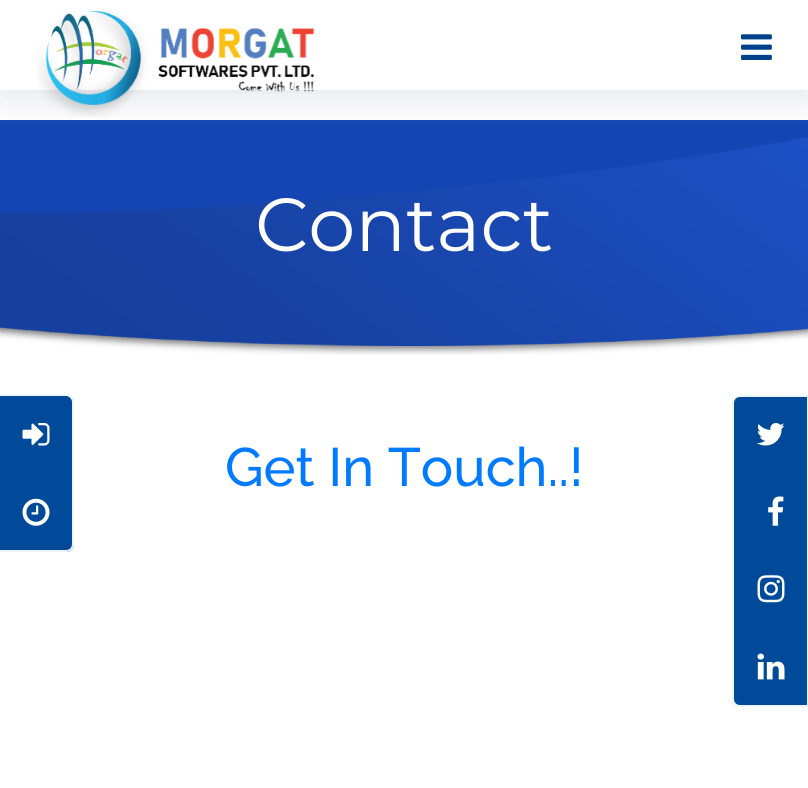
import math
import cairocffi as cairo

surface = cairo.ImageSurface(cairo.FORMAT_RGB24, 808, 788)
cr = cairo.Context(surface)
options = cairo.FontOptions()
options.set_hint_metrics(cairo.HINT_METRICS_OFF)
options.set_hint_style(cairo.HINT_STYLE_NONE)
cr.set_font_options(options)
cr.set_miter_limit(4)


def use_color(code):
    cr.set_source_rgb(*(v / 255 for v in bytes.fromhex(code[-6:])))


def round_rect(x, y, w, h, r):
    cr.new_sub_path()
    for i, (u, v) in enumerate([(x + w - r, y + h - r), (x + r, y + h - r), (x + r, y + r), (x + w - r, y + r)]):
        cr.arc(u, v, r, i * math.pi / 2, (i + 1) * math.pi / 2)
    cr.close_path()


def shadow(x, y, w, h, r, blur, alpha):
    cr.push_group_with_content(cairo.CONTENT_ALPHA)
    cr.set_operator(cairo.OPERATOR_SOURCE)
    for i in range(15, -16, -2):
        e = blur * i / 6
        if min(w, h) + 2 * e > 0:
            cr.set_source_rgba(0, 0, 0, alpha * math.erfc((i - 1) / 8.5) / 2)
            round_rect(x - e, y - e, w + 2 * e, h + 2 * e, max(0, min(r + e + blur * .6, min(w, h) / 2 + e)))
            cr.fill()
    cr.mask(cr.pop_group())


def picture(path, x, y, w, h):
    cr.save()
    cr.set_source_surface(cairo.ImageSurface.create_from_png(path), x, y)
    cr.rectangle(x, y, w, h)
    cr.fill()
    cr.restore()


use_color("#ffffff")
cr.paint()
picture("img3.png", 0, 120, 808, 235)
cr.save()
cr.rectangle(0, 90, 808, 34)
cr.clip()
use_color("#7f89a1")
shadow(0, 0, 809, 90, 0, 22.5, 0.3)
cr.restore()
picture("img1.png", 37, 10, 278, 107)
picture("img2.png", 741, 34, 31, 26)
cr.select_font_face("Montserrat")
cr.set_font_size(75)
use_color("#ffffff")
cr.move_to(255, 251)
cr.show_text("Contact")
use_color("#004a99")
cr.new_path()
cr.move_to(0, 395)
cr.line_to(66, 395)
cr.curve_to(70.5, 395, 74, 398.5, 74, 403)
cr.line_to(74, 544)
cr.curve_to(74, 548.5, 70.5, 552, 66, 552)
cr.line_to(0, 552)
cr.close_path()
cr.fill()
use_color("#ecf5ff")
cr.set_fill_rule(cairo.FILL_RULE_EVEN_ODD)
cr.new_path()
cr.move_to(0, 394)
cr.line_to(66, 394)
cr.curve_to(70, 394, 74, 398, 74, 402)
cr.line_to(74, 544)
cr.curve_to(74, 549, 70, 552, 66, 552)
cr.line_to(0, 552)
cr.close_path()
cr.move_to(0, 396)
cr.line_to(66, 396)
cr.curve_to(69, 396, 72, 399, 72, 402)
cr.line_to(72, 544)
cr.curve_to(72, 548, 69, 550, 66, 550)
cr.line_to(0, 550)
cr.close_path()
cr.fill()
picture("img4.png", 22, 423, 28, 23)
picture("img5.png", 22, 498, 28, 28)
cr.select_font_face("Raleway Medium")
cr.set_font_size(54)
use_color("#007bff")
cr.move_to(225, 486)
cr.show_text("Get In Touch..!")
use_color("#004a99")
cr.new_path()
cr.move_to(740, 396)
cr.line_to(808, 396)
cr.line_to(808, 706)
cr.line_to(740, 706)
cr.curve_to(736, 706, 733, 703, 733, 699)
cr.line_to(733, 403)
cr.curve_to(733, 399, 736, 396, 740, 396)
cr.close_path()
cr.fill_preserve()
use_color("#ecf5ff")
cr.stroke()
picture("img6.png", 757, 423, 28, 23)
picture("img7.png", 768, 496, 16, 30)
picture("img8.png", 757, 575, 28, 28)
picture("img9.png", 757, 653, 28, 27)
surface.write_to_png("result.png")
